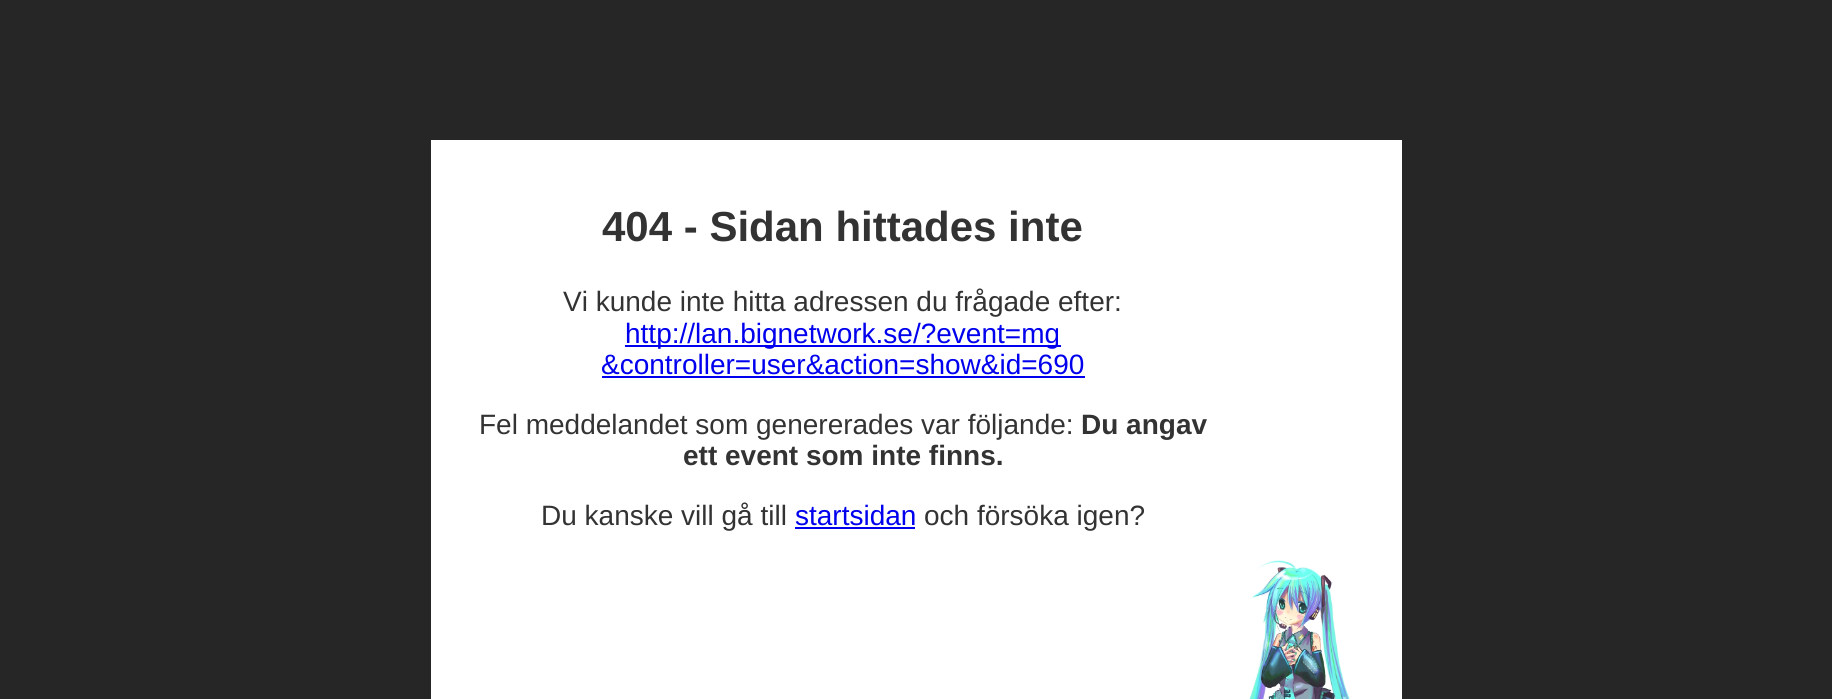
import math
import cairocffi as cairo

surface = cairo.ImageSurface(cairo.FORMAT_RGB24, 1832, 699)
cr = cairo.Context(surface)
options = cairo.FontOptions()
options.set_hint_metrics(cairo.HINT_METRICS_OFF)
options.set_hint_style(cairo.HINT_STYLE_NONE)
cr.set_font_options(options)
cr.set_miter_limit(4)


def use_color(code):
    cr.set_source_rgb(*(v / 255 for v in bytes.fromhex(code[-6:])))


def picture(path, x, y, w, h):
    cr.save()
    cr.set_source_surface(cairo.ImageSurface.create_from_png(path), x, y)
    cr.rectangle(x, y, w, h)
    cr.fill()
    cr.restore()


use_color("#262626")
cr.paint()
use_color("#ffffff")
cr.rectangle(431, 140, 971, 559)
cr.fill()
cr.select_font_face("Liberation Sans", cairo.FONT_SLANT_NORMAL, cairo.FONT_WEIGHT_BOLD)
cr.set_font_size(42)
use_color("#333333")
cr.move_to(602, 241)
cr.show_text("404 - Sidan hittades inte")
cr.select_font_face("Liberation Sans")
cr.set_font_size(28)
cr.move_to(563, 311)
cr.show_text("Vi kunde inte hitta adressen du frågade efter:")
use_color("#0000ee")
cr.rectangle(625, 345, 436, 2)
cr.fill()
cr.move_to(625, 343)
cr.show_text("http://lan.bignetwork.se/?event=mg")
cr.move_to(601, 374)
cr.show_text("&controller=user&action=show&id=690")
cr.rectangle(602, 376, 483, 2)
cr.fill()
use_color("#333333")
cr.move_to(479, 434)
cr.show_text("Fel meddelandet som genererades var följande:")
cr.select_font_face("Liberation Sans", cairo.FONT_SLANT_NORMAL, cairo.FONT_WEIGHT_BOLD)
cr.move_to(1081, 434)
cr.show_text("Du angav")
cr.move_to(683, 465)
cr.show_text("ett event som inte finns.")
cr.select_font_face("Liberation Sans")
cr.move_to(541, 525)
cr.show_text("Du kanske vill gå till")
use_color("#0000ee")
cr.move_to(795, 525)
cr.show_text("startsidan")
cr.rectangle(795, 527, 120, 2)
cr.fill()
use_color("#333333")
cr.move_to(924, 525)
cr.show_text("och försöka igen?")
picture("img1.png", 1249, 560, 101, 139)
surface.write_to_png("result.png")
